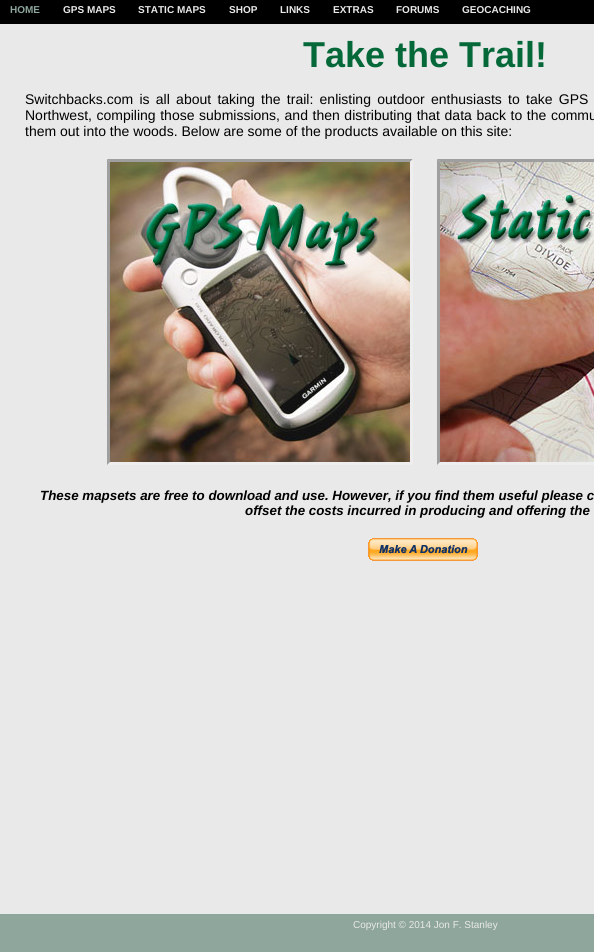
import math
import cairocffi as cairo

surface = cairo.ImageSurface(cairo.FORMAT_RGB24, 594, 952)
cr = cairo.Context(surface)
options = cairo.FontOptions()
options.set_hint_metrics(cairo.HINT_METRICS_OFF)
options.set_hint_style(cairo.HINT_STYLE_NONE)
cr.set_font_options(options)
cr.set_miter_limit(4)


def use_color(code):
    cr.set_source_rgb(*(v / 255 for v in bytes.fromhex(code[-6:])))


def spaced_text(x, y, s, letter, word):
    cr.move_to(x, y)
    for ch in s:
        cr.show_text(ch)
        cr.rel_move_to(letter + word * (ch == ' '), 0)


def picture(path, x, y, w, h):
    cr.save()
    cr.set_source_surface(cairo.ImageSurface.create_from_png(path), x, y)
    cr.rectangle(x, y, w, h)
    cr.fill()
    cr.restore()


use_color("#8ea69b")
cr.paint()
use_color("#000000")
cr.rectangle(0, 0, 594, 24)
cr.fill()
cr.select_font_face("Liberation Sans", cairo.FONT_SLANT_NORMAL, cairo.FONT_WEIGHT_BOLD)
cr.set_font_size(10)
use_color("#8ea69b")
cr.move_to(10, 13)
cr.show_text("HOME")
use_color("#e9e9e9")
cr.move_to(63, 13)
cr.show_text("GPS MAPS")
cr.move_to(138, 13)
cr.show_text("STATIC MAPS")
cr.move_to(229, 13)
cr.show_text("SHOP")
cr.move_to(280, 13)
cr.show_text("LINKS")
cr.move_to(333, 13)
cr.show_text("EXTRAS")
cr.move_to(396, 13)
cr.show_text("FORUMS")
cr.move_to(462, 13)
cr.show_text("GEOCACHING")
cr.rectangle(0, 24, 594, 890)
cr.fill()
cr.set_font_size(36)
use_color("#056839")
cr.move_to(303, 67)
cr.show_text("Take the Trail!")
cr.select_font_face("Liberation Sans")
cr.set_font_size(14)
use_color("#000000")
spaced_text(25, 104, "Switchbacks.com is all about taking the trail: enlisting outdoor enthusiasts to take GPS", 0, 2.4)
spaced_text(25, 120, "Northwest, compiling those submissions, and then distributing that data back to the commu", 0, 0.7)
cr.move_to(25, 136)
cr.show_text("them out into the woods. Below are some of the products available on this site:")
use_color("#9f9f9f")
cr.new_path()
cr.move_to(107, 159)
cr.line_to(413, 159)
cr.line_to(410, 162)
cr.line_to(110, 162)
cr.close_path()
cr.fill()
use_color("#eeeeee")
cr.new_path()
cr.move_to(413, 159)
cr.line_to(413, 465)
cr.line_to(410, 462)
cr.line_to(410, 162)
cr.close_path()
cr.fill()
cr.new_path()
cr.move_to(413, 465)
cr.line_to(107, 465)
cr.line_to(110, 462)
cr.line_to(410, 462)
cr.close_path()
cr.fill()
use_color("#9f9f9f")
cr.new_path()
cr.move_to(107, 465)
cr.line_to(107, 159)
cr.line_to(110, 162)
cr.line_to(110, 462)
cr.close_path()
cr.fill()
cr.new_path()
cr.move_to(437, 159)
cr.line_to(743, 159)
cr.line_to(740, 162)
cr.line_to(440, 162)
cr.close_path()
cr.fill()
picture("img1.png", 110, 162, 300, 300)
use_color("#eeeeee")
cr.new_path()
cr.move_to(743, 465)
cr.line_to(437, 465)
cr.line_to(440, 462)
cr.line_to(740, 462)
cr.close_path()
cr.fill()
use_color("#9f9f9f")
cr.new_path()
cr.move_to(437, 465)
cr.line_to(437, 159)
cr.line_to(440, 162)
cr.line_to(440, 462)
cr.close_path()
cr.fill()
picture("img2.png", 440, 162, 154, 300)
cr.select_font_face("Liberation Sans", cairo.FONT_SLANT_ITALIC, cairo.FONT_WEIGHT_BOLD)
cr.set_font_size(13.35)
use_color("#000000")
cr.move_to(40, 500)
cr.show_text("These mapsets are free to download and use. However, if you find them useful please c")
cr.move_to(245, 515)
cr.show_text("offset the costs incurred in producing and offering the")
picture("img3.png", 368, 538, 110, 23)
cr.select_font_face("Liberation Sans")
cr.set_font_size(10)
use_color("#e9e9e9")
cr.move_to(353, 928)
cr.show_text("Copyright © 2014 Jon F. Stanley")
surface.write_to_png("result.png")
